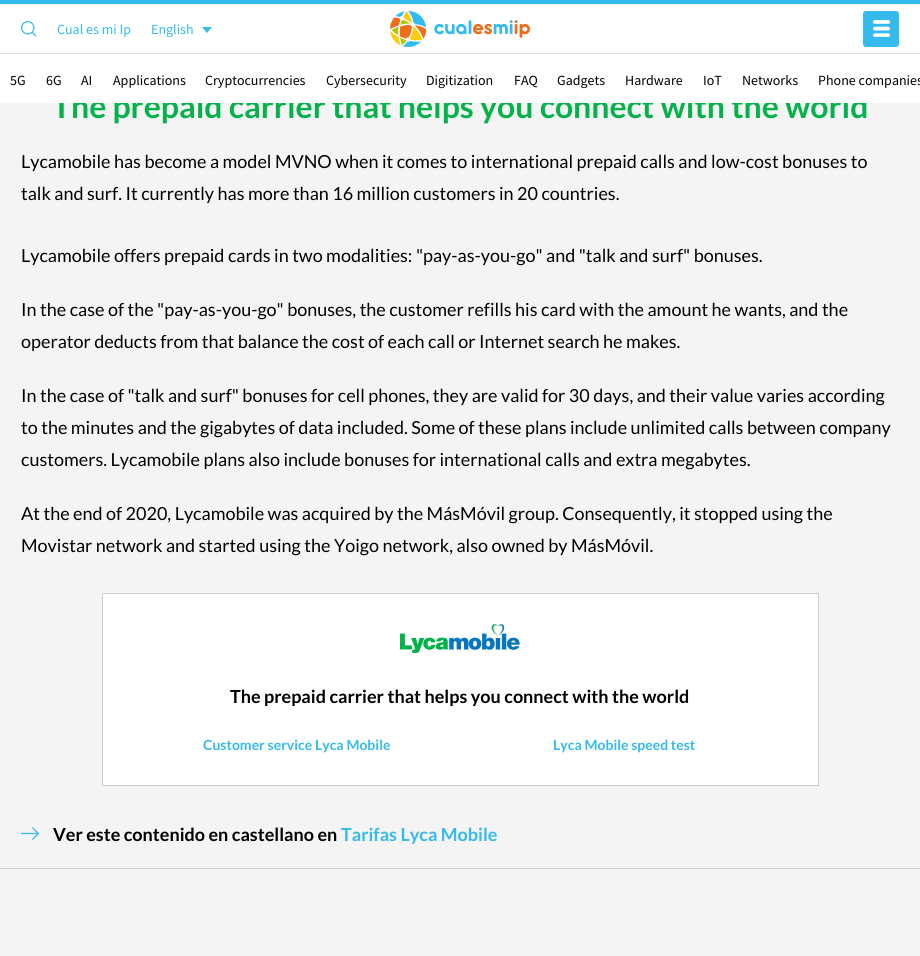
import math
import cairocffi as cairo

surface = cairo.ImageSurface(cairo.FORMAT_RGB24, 920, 956)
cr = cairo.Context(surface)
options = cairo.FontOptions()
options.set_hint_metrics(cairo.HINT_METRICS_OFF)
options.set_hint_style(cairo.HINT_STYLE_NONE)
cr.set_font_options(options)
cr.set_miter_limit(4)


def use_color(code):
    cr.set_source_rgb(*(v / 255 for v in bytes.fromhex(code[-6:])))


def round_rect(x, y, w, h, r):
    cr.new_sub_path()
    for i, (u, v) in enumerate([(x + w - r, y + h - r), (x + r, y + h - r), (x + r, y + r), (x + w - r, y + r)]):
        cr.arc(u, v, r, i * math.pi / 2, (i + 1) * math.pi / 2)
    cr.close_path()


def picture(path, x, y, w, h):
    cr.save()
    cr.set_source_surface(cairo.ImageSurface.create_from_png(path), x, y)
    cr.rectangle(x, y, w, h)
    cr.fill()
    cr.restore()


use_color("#f4f4f4")
cr.paint()
use_color("#ffffff")
cr.rectangle(0, 4, 920, 49)
cr.fill()
use_color("#34baed")
cr.rectangle(0, 0, 920, 4)
cr.fill()
picture("img1.png", 390, 11, 140, 36)
round_rect(863, 11, 36, 36, 3)
cr.fill()
picture("img2.png", 873, 20, 17, 17)
picture("img3.png", 21, 21, 16, 16)
cr.select_font_face("Source Sans Pro")
cr.set_font_size(14)
cr.move_to(57, 34)
cr.show_text("Cual es mi Ip")
cr.move_to(151, 34)
cr.show_text("English")
cr.new_path()
cr.move_to(202, 27)
cr.line_to(212, 27)
cr.line_to(207, 33)
cr.close_path()
cr.fill()
use_color("#dddddd")
cr.rectangle(0, 53, 920, 1)
cr.fill()
cr.select_font_face("Lato", cairo.FONT_SLANT_NORMAL, cairo.FONT_WEIGHT_BOLD)
cr.set_font_size(32)
use_color("#03b249")
cr.move_to(52, 118)
cr.show_text("The prepaid carrier that helps you connect with the world")
use_color("#ffffff")
cr.rectangle(0, 54, 920, 49)
cr.fill()
cr.select_font_face("Source Sans Pro")
cr.set_font_size(14)
use_color("#000000")
cr.move_to(10, 85)
cr.show_text("5G")
cr.move_to(46, 85)
cr.show_text("6G")
cr.move_to(81, 85)
cr.show_text("AI")
cr.move_to(113, 85)
cr.show_text("Applications")
cr.move_to(205, 85)
cr.show_text("Cryptocurrencies")
cr.move_to(326, 85)
cr.show_text("Cybersecurity")
cr.move_to(426, 85)
cr.show_text("Digitization")
cr.move_to(514, 85)
cr.show_text("FAQ")
cr.move_to(557, 85)
cr.show_text("Gadgets")
cr.move_to(625, 85)
cr.show_text("Hardware")
cr.move_to(703, 85)
cr.show_text("IoT")
cr.move_to(742, 85)
cr.show_text("Networks")
cr.move_to(818, 85)
cr.show_text("Phone companies")
cr.select_font_face("Lato")
cr.set_font_size(18)
cr.move_to(21, 168)
cr.show_text("Lycamobile has become a model MVNO when it comes to international prepaid calls and low-cost bonuses to")
cr.move_to(21, 200)
cr.show_text("talk and surf. It currently has more than 16 million customers in 20 countries.")
cr.move_to(21, 262)
cr.show_text("Lycamobile offers prepaid cards in two modalities: \"pay-as-you-go\" and \"talk and surf\" bonuses.")
cr.move_to(21, 316)
cr.show_text("In the case of the \"pay-as-you-go\" bonuses, the customer refills his card with the amount he wants, and the")
cr.move_to(21, 348)
cr.show_text("operator deducts from that balance the cost of each call or Internet search he makes.")
cr.move_to(21, 402)
cr.show_text("In the case of \"talk and surf\" bonuses for cell phones, they are valid for 30 days, and their value varies according")
cr.move_to(21, 434)
cr.show_text("to the minutes and the gigabytes of data included. Some of these plans include unlimited calls between company")
cr.move_to(21, 466)
cr.show_text("customers. Lycamobile plans also include bonuses for international calls and extra megabytes.")
cr.move_to(21, 520)
cr.show_text("At the end of 2020, Lycamobile was acquired by the MásMóvil group. Consequently, it stopped using the")
cr.move_to(21, 552)
cr.show_text("Movistar network and started using the Yoigo network, also owned by MásMóvil.")
use_color("#ffffff")
cr.rectangle(102.5, 593.5, 716, 192)
cr.fill_preserve()
use_color("#cdcdcd")
cr.set_line_width(1)
cr.stroke()
picture("img4.png", 400, 624, 120, 29)
cr.select_font_face("Lato", cairo.FONT_SLANT_NORMAL, cairo.FONT_WEIGHT_BOLD)
use_color("#000000")
cr.move_to(230, 703)
cr.show_text("The prepaid carrier that helps you connect with the world")
cr.set_font_size(14)
use_color("#34baed")
cr.move_to(203, 750)
cr.show_text("Customer service Lyca Mobile")
cr.move_to(553, 750)
cr.show_text("Lyca Mobile speed test")
picture("img5.png", 21, 827, 18, 13)
cr.set_font_size(18)
use_color("#000000")
cr.move_to(53, 841)
cr.show_text("Ver este contenido en castellano en")
use_color("#34baed")
cr.move_to(341, 841)
cr.show_text("Tarifas Lyca Mobile")
use_color("#cccccc")
cr.rectangle(0, 868, 920, 1)
cr.fill()
surface.write_to_png("result.png")
